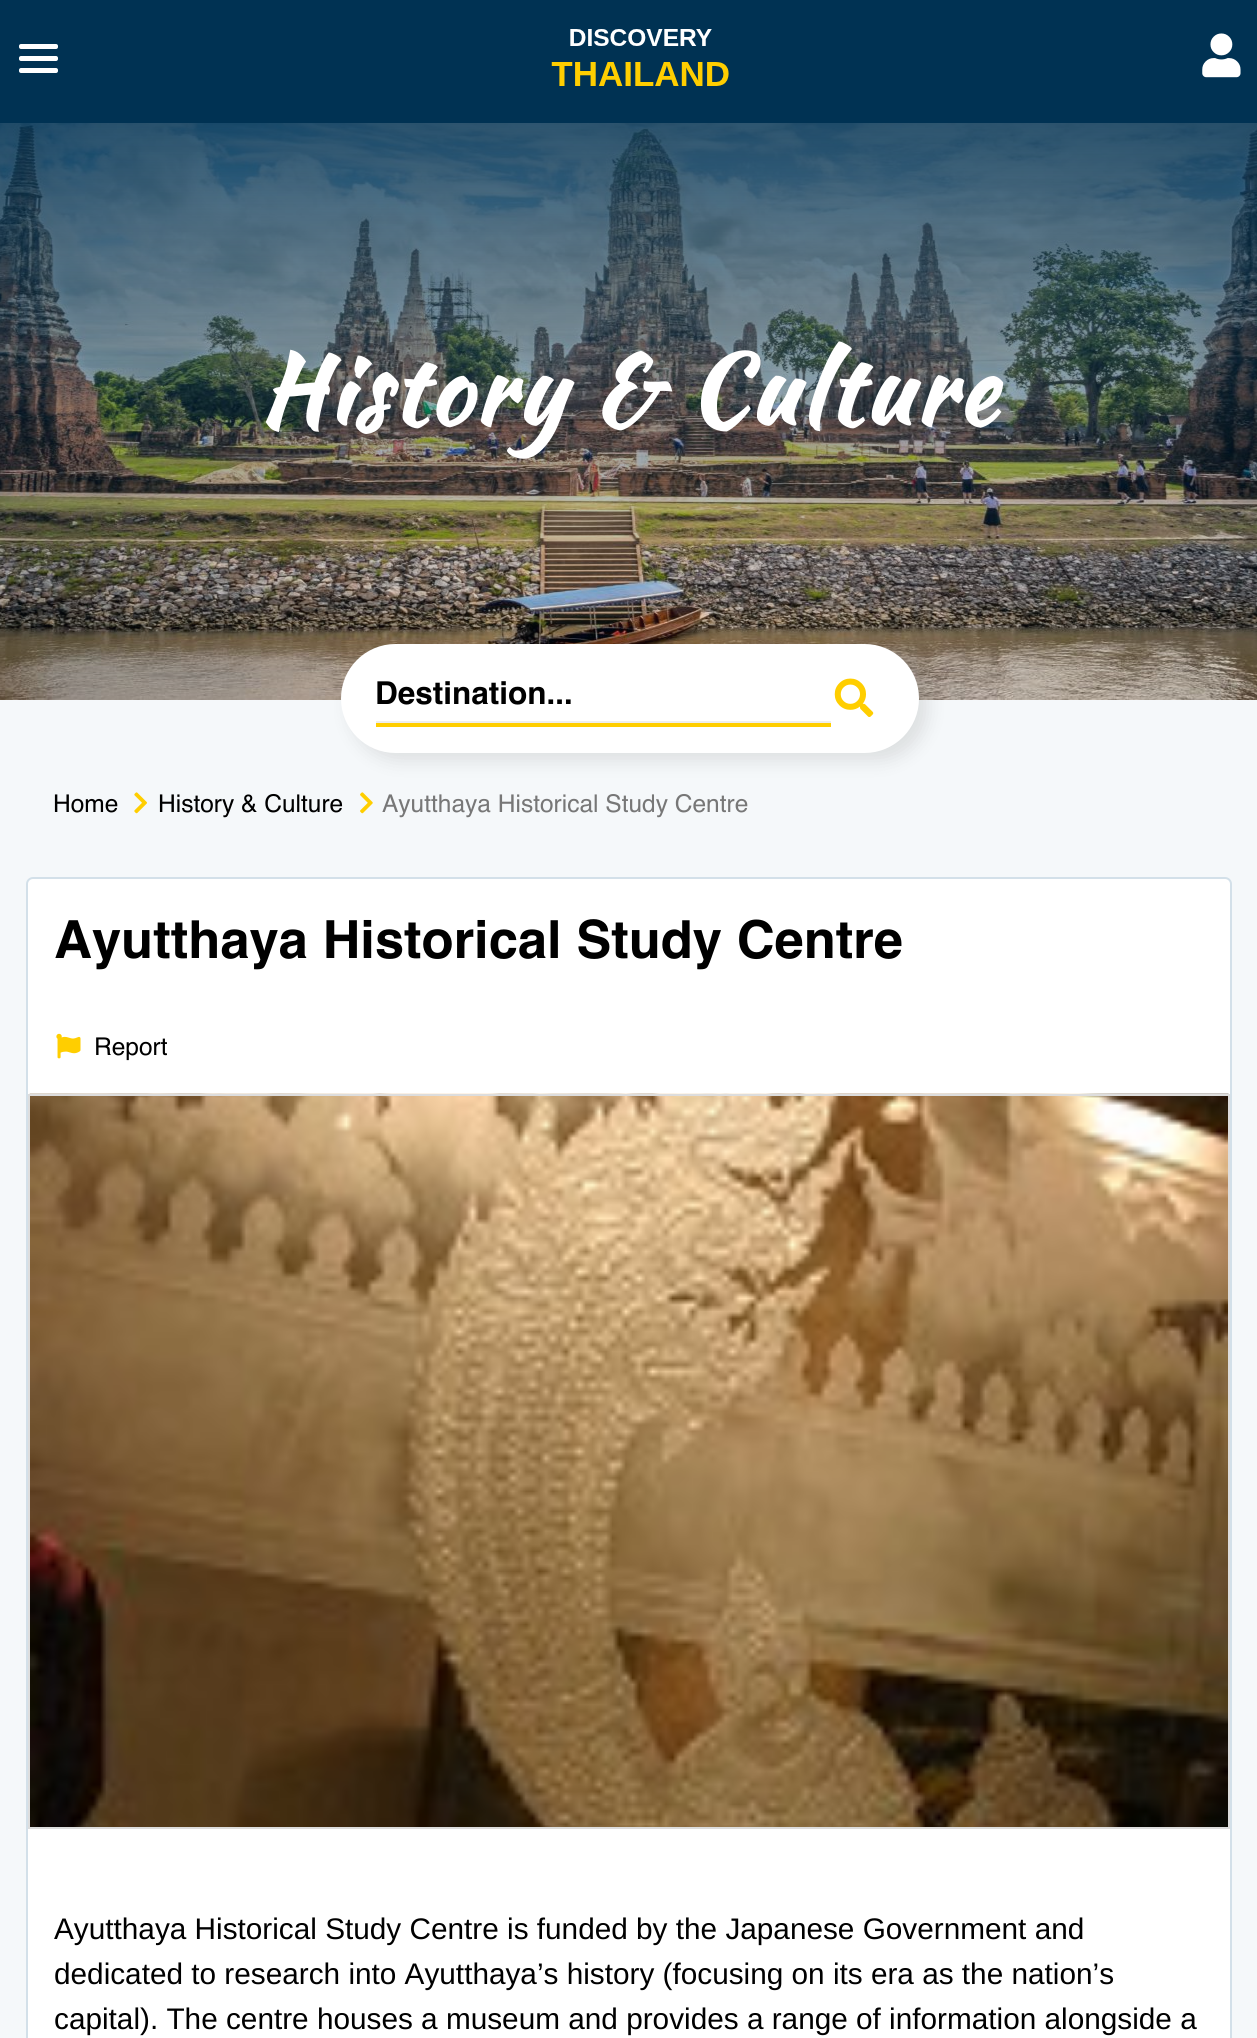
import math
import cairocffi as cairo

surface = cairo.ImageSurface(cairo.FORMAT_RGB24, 1257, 2038)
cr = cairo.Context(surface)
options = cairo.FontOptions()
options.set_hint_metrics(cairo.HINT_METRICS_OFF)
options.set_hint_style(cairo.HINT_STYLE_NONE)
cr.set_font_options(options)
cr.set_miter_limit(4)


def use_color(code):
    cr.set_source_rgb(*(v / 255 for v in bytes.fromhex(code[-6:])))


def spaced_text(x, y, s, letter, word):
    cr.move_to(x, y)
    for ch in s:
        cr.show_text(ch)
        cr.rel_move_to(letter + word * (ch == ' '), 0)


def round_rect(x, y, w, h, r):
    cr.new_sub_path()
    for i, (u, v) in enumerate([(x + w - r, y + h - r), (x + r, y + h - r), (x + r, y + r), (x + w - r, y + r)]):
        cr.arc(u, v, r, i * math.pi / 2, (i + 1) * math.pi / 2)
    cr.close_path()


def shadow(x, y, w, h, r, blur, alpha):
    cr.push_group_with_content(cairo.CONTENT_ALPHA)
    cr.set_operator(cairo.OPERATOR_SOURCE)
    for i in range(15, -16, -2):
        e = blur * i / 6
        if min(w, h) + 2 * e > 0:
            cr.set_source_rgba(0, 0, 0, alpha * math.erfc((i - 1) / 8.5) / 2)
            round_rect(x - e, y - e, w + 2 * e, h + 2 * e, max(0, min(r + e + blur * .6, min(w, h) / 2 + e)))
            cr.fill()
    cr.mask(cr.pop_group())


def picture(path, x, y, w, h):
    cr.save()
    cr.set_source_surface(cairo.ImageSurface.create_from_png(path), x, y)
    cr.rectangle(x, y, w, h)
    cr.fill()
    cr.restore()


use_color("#f5f8fa")
cr.paint()
use_color("#003253")
cr.rectangle(0, 0, 1257, 123)
cr.fill()
use_color("#ffffff")
round_rect(19, 44, 39, 5, 2)
cr.fill()
round_rect(19, 56, 39, 5, 2)
cr.fill()
round_rect(19, 68, 39, 5, 2)
cr.fill()
picture("img1.png", 551, 29, 178, 57)
picture("img2.png", 1202, 33, 39, 45)
picture("img3.png", 0, 123, 1257, 577)
cr.select_font_face("Kaushan Script", cairo.FONT_SLANT_NORMAL, cairo.FONT_WEIGHT_BOLD)
cr.set_font_size(96.25)
spaced_text(259, 424, "History & Culture", 3.5, 0)
use_color("#000000")
shadow(350, 653, 578, 108, 54, 9, 0.1)
use_color("#ffffff")
round_rect(341, 644, 578, 109, 54.5)
cr.fill()
cr.select_font_face("Helvetica", cairo.FONT_SLANT_NORMAL, cairo.FONT_WEIGHT_BOLD)
cr.set_font_size(31.5)
use_color("#000000")
cr.move_to(375, 704)
cr.show_text("Destination...")
picture("img4.png", 834, 678, 40, 39)
use_color("#eeeeee")
cr.rectangle(376, 721, 455, 2)
cr.fill()
use_color("#ffce00")
cr.rectangle(376, 723, 455, 4)
cr.fill()
cr.select_font_face("Helvetica")
cr.set_font_size(24.5)
use_color("#000000")
cr.move_to(53, 812)
cr.show_text("Home")
picture("img5.png", 134, 792, 13, 22)
cr.move_to(158, 812)
cr.show_text("History & Culture")
picture("img6.png", 360, 792, 13, 22)
use_color("#777777")
cr.move_to(382, 812)
cr.show_text("Ayutthaya Historical Study Centre")
use_color("#ffffff")
round_rect(27, 878, 1204, 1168, 6)
cr.fill_preserve()
use_color("#d3e0e9")
cr.stroke()
cr.select_font_face("Helvetica", cairo.FONT_SLANT_NORMAL, cairo.FONT_WEIGHT_BOLD)
cr.set_font_size(52.5)
use_color("#000000")
cr.move_to(54, 958)
cr.show_text("Ayutthaya Historical Study Centre")
picture("img7.png", 56, 1033, 25, 26)
cr.select_font_face("Helvetica")
cr.set_font_size(24.5)
cr.move_to(94, 1055)
cr.show_text("Report")
picture("img8.png", 29, 1093, 1200, 734)
cr.rectangle(29, 1095, 1200, 733)
use_color("#dddddd")
cr.stroke()
cr.select_font_face("Liberation Sans")
cr.set_font_size(29.75)
use_color("#000000")
cr.move_to(54, 1939)
cr.show_text("Ayutthaya Historical Study Centre is funded by the Japanese Government and")
cr.move_to(54, 1984)
cr.show_text("dedicated to research into Ayutthaya’s history (focusing on its era as the nation’s")
cr.move_to(54, 2029)
cr.show_text("capital). The centre houses a museum and provides a range of information alongside a")
surface.write_to_png("result.png")
